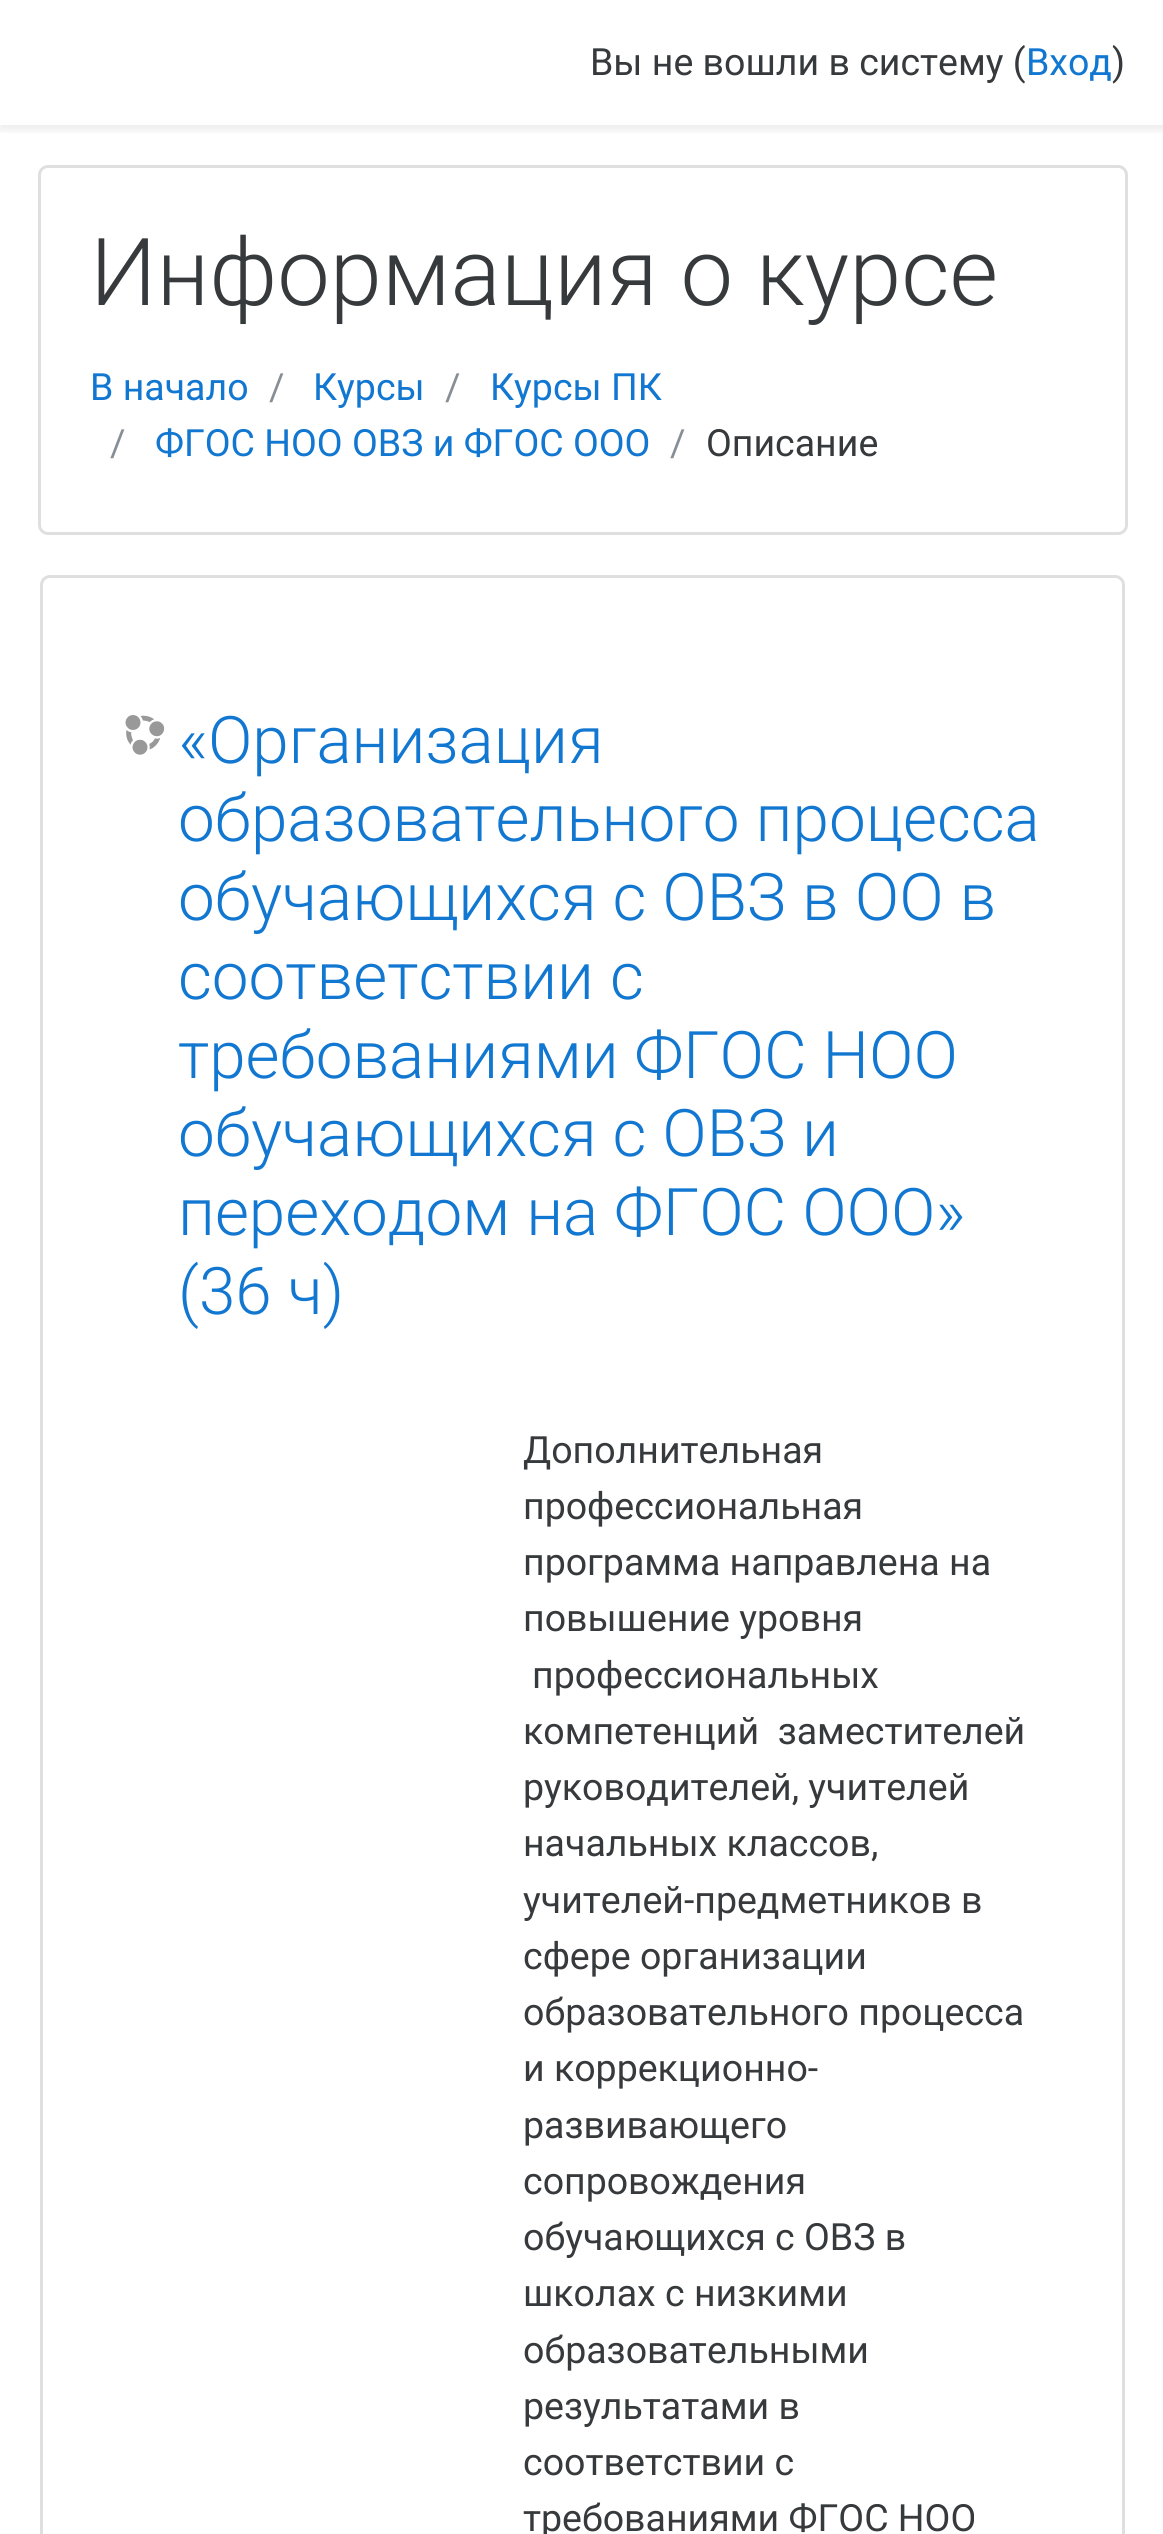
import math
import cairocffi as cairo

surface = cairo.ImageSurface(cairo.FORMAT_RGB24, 1163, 2534)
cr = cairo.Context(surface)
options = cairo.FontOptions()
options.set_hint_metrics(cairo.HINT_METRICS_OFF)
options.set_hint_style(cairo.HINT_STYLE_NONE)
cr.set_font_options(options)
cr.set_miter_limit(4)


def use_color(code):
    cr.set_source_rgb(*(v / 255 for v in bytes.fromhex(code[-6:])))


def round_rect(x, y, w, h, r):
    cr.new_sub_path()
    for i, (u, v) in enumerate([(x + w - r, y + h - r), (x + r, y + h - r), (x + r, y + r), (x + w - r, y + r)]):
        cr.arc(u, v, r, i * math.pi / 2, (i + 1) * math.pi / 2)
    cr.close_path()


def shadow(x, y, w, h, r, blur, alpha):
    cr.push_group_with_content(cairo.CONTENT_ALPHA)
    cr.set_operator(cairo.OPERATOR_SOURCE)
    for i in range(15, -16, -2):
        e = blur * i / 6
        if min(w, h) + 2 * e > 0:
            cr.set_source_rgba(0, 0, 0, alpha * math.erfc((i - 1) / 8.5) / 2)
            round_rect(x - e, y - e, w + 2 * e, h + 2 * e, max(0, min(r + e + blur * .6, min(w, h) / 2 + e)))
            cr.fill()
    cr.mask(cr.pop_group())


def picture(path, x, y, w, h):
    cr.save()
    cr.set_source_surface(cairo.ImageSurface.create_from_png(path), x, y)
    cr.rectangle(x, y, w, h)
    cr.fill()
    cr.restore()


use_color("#ffffff")
cr.paint()
cr.save()
cr.rectangle(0, 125, 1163, 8)
cr.clip()
use_color("#000000")
shadow(0, 5, 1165, 125, 0, 5, 0.08)
cr.restore()
cr.select_font_face("Roboto")
cr.set_font_size(37.5)
use_color("#373a3c")
cr.move_to(590, 75)
cr.show_text("Вы не вошли в систему (")
use_color("#1177d1")
cr.move_to(1026, 75)
cr.show_text("Вход")
use_color("#373a3c")
cr.move_to(1112, 75)
cr.show_text(")")
round_rect(39.5, 166.5, 1087, 367, 8.5)
use_color("#dfdfdf")
cr.set_line_width(3)
cr.stroke()
cr.select_font_face("Roboto Light")
cr.set_font_size(93.75)
use_color("#373a3c")
cr.move_to(90, 305)
cr.show_text("Информация о курсе")
cr.select_font_face("Roboto")
cr.set_font_size(37.5)
use_color("#1177d1")
cr.move_to(90, 400)
cr.show_text("В начало")
use_color("#868e96")
cr.move_to(269, 400)
cr.show_text("/")
use_color("#1177d1")
cr.move_to(313, 400)
cr.show_text("Курсы")
use_color("#868e96")
cr.move_to(445, 400)
cr.show_text("/")
use_color("#1177d1")
cr.move_to(490, 400)
cr.show_text("Курсы ПК")
use_color("#868e96")
cr.move_to(110, 456)
cr.show_text("/")
use_color("#1177d1")
cr.move_to(155, 456)
cr.show_text("ФГОС НОО ОВЗ и ФГОС ООО")
use_color("#868e96")
cr.move_to(670, 456)
cr.show_text("/")
use_color("#373a3c")
cr.move_to(706, 456)
cr.show_text("Описание")
round_rect(41.5, 576.5, 1082, 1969, 8.5)
use_color("#dfdfdf")
cr.stroke()
picture("img1.png", 125, 715, 40, 40)
cr.select_font_face("Roboto Light")
cr.set_font_size(65.6)
use_color("#1177d1")
cr.move_to(178, 763)
cr.show_text("«Организация")
cr.move_to(178, 841)
cr.show_text("образовательного процесса")
cr.move_to(178, 920)
cr.show_text("обучающихся с ОВЗ в ОО в")
cr.move_to(178, 999)
cr.show_text("соответствии с")
cr.move_to(178, 1078)
cr.show_text("требованиями ФГОС НОО")
cr.move_to(178, 1156)
cr.show_text("обучающихся с ОВЗ и")
cr.move_to(178, 1235)
cr.show_text("переходом на ФГОС ООО»")
cr.move_to(178, 1314)
cr.show_text("(36 ч)")
cr.select_font_face("Roboto")
cr.set_font_size(37.5)
use_color("#373a3c")
cr.move_to(523, 1463)
cr.show_text("Дополнительная")
cr.move_to(523, 1519)
cr.show_text("профессиональная")
cr.move_to(523, 1575)
cr.show_text("программа направлена на")
cr.move_to(523, 1631)
cr.show_text("повышение уровня")
cr.move_to(532, 1688)
cr.show_text("профессиональных")
cr.move_to(523, 1744)
cr.show_text("компетенций  заместителей")
cr.move_to(523, 1800)
cr.show_text("руководителей, учителей")
cr.move_to(523, 1856)
cr.show_text("начальных классов,")
cr.move_to(523, 1913)
cr.show_text("учителей-предметников в")
cr.move_to(523, 1969)
cr.show_text("сфере организации")
cr.move_to(523, 2025)
cr.show_text("образовательного процесса")
cr.move_to(523, 2081)
cr.show_text("и коррекционно-")
cr.move_to(523, 2138)
cr.show_text("развивающего")
cr.move_to(523, 2194)
cr.show_text("сопровождения")
cr.move_to(523, 2250)
cr.show_text("обучающихся с ОВЗ в")
cr.move_to(523, 2306)
cr.show_text("школах с низкими")
cr.move_to(523, 2363)
cr.show_text("образовательными")
cr.move_to(523, 2419)
cr.show_text("результатами в")
cr.move_to(523, 2475)
cr.show_text("соответствии с")
cr.move_to(523, 2531)
cr.show_text("требованиями ФГОС НОО")
surface.write_to_png("result.png")
